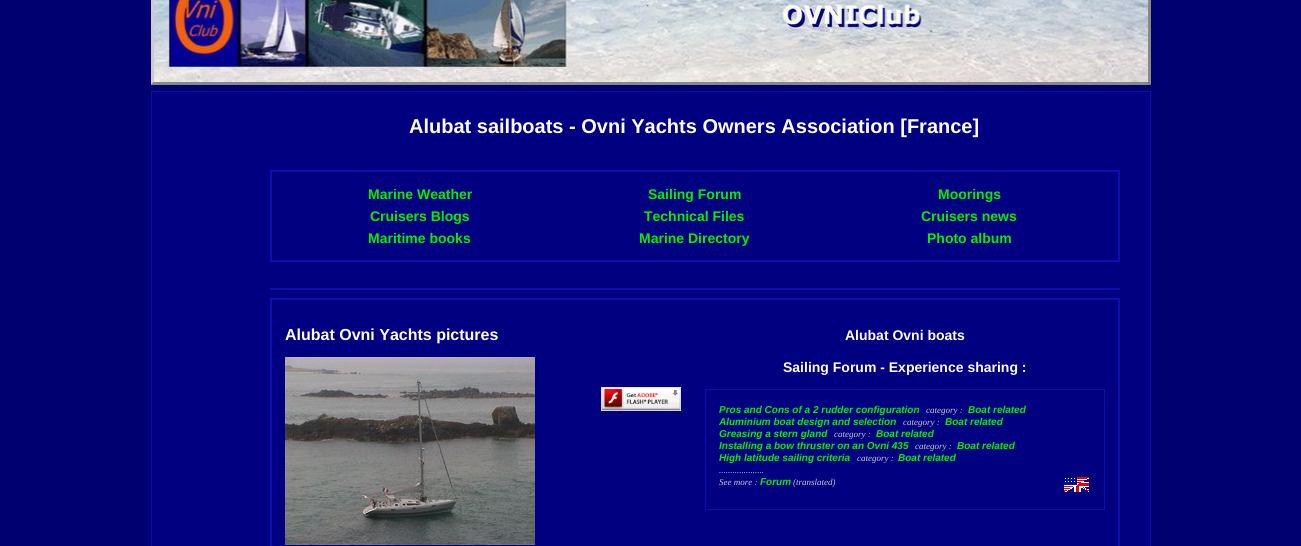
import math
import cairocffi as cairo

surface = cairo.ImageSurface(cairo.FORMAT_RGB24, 1301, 546)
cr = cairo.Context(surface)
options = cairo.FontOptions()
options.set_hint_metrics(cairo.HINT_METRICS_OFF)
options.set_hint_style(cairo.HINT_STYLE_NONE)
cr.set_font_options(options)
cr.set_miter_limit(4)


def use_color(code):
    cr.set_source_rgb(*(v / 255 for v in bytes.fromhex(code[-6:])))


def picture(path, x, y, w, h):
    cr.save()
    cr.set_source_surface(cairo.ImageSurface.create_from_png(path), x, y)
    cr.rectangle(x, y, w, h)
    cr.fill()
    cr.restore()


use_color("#000070")
cr.paint()
use_color("#888888")
cr.new_path()
cr.move_to(1151, -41)
cr.line_to(1151, 85)
cr.line_to(1148, 82)
cr.line_to(1148, -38)
cr.close_path()
cr.fill()
cr.new_path()
cr.move_to(1151, 85)
cr.line_to(151, 85)
cr.line_to(154, 82)
cr.line_to(1148, 82)
cr.close_path()
cr.fill()
use_color("#cccccc")
cr.new_path()
cr.move_to(151, 85)
cr.line_to(151, -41)
cr.line_to(154, -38)
cr.line_to(154, 82)
cr.close_path()
cr.fill()
picture("img1.png", 154, 0, 994, 82)
cr.rectangle(151.5, 91.5, 999, 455)
use_color("#0e0eac")
cr.set_line_width(1)
cr.stroke()
use_color("#000080")
cr.rectangle(152, 92, 998, 454)
cr.fill()
cr.select_font_face("Liberation Sans", cairo.FONT_SLANT_NORMAL, cairo.FONT_WEIGHT_BOLD)
cr.set_font_size(20)
use_color("#fcfcfc")
cr.move_to(409, 133)
cr.show_text("Alubat sailboats - Ovni Yachts Owners Association [France]")
cr.rectangle(271, 171, 848, 90)
use_color("#0e0eac")
cr.set_line_width(2)
cr.stroke()
cr.set_font_size(14)
use_color("#00f000")
cr.move_to(368, 199)
cr.show_text("Marine Weather")
cr.move_to(648, 199)
cr.show_text("Sailing Forum")
cr.move_to(938, 199)
cr.show_text("Moorings")
cr.move_to(370, 221)
cr.show_text("Cruisers Blogs")
cr.move_to(644, 221)
cr.show_text("Technical Files")
cr.move_to(921, 221)
cr.show_text("Cruisers news")
cr.move_to(368, 243)
cr.show_text("Maritime books")
cr.move_to(639, 243)
cr.show_text("Marine Directory")
cr.move_to(927, 243)
cr.show_text("Photo album")
use_color("#0e0eac")
cr.rectangle(270, 288, 850, 2)
cr.fill()
cr.rectangle(271, 299, 848, 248)
cr.stroke()
cr.set_font_size(16)
use_color("#fcfcfc")
cr.move_to(285, 340)
cr.show_text("Alubat Ovni Yachts pictures")
picture("img2.png", 285, 357, 250, 188)
picture("img3.png", 601, 387, 80, 24)
cr.set_font_size(14)
cr.move_to(845, 340)
cr.show_text("Alubat Ovni boats")
cr.move_to(783, 372)
cr.show_text("Sailing Forum - Experience sharing :")
cr.rectangle(705.5, 389.5, 399, 120)
use_color("#0e0eac")
cr.set_line_width(1)
cr.stroke()
cr.select_font_face("Liberation Sans", cairo.FONT_SLANT_ITALIC, cairo.FONT_WEIGHT_BOLD)
cr.set_font_size(10)
use_color("#00f000")
cr.move_to(719, 413)
cr.show_text("Pros and Cons of a 2 rudder configuration")
cr.select_font_face("Liberation Serif", cairo.FONT_SLANT_ITALIC)
cr.set_font_size(9)
use_color("#cccccc")
cr.move_to(926, 413)
cr.show_text("category :")
cr.select_font_face("Liberation Sans", cairo.FONT_SLANT_ITALIC, cairo.FONT_WEIGHT_BOLD)
cr.set_font_size(10)
use_color("#00f000")
cr.move_to(968, 413)
cr.show_text("Boat related")
cr.move_to(719, 425)
cr.show_text("Aluminium boat design and selection")
cr.select_font_face("Liberation Serif", cairo.FONT_SLANT_ITALIC)
cr.set_font_size(9)
use_color("#cccccc")
cr.move_to(903, 425)
cr.show_text("category :")
cr.select_font_face("Liberation Sans", cairo.FONT_SLANT_ITALIC, cairo.FONT_WEIGHT_BOLD)
cr.set_font_size(10)
use_color("#00f000")
cr.move_to(945, 425)
cr.show_text("Boat related")
cr.move_to(719, 437)
cr.show_text("Greasing a stern gland")
cr.select_font_face("Liberation Serif", cairo.FONT_SLANT_ITALIC)
cr.set_font_size(9)
use_color("#cccccc")
cr.move_to(834, 437)
cr.show_text("category :")
cr.select_font_face("Liberation Sans", cairo.FONT_SLANT_ITALIC, cairo.FONT_WEIGHT_BOLD)
cr.set_font_size(10)
use_color("#00f000")
cr.move_to(876, 437)
cr.show_text("Boat related")
cr.move_to(719, 449)
cr.show_text("Installing a bow thruster on an Ovni 435")
cr.select_font_face("Liberation Serif", cairo.FONT_SLANT_ITALIC)
cr.set_font_size(9)
use_color("#cccccc")
cr.move_to(915, 449)
cr.show_text("category :")
cr.select_font_face("Liberation Sans", cairo.FONT_SLANT_ITALIC, cairo.FONT_WEIGHT_BOLD)
cr.set_font_size(10)
use_color("#00f000")
cr.move_to(957, 449)
cr.show_text("Boat related")
cr.move_to(719, 461)
cr.show_text("High latitude sailing criteria")
cr.select_font_face("Liberation Serif", cairo.FONT_SLANT_ITALIC)
cr.set_font_size(9)
use_color("#cccccc")
cr.move_to(857, 461)
cr.show_text("category :")
cr.select_font_face("Liberation Sans", cairo.FONT_SLANT_ITALIC, cairo.FONT_WEIGHT_BOLD)
cr.set_font_size(10)
use_color("#00f000")
cr.move_to(898, 461)
cr.show_text("Boat related")
cr.select_font_face("Liberation Serif", cairo.FONT_SLANT_ITALIC)
cr.set_font_size(9)
use_color("#cccccc")
cr.move_to(719, 473)
cr.show_text("....................")
cr.move_to(719, 485)
cr.show_text("See more :")
cr.select_font_face("Liberation Sans", cairo.FONT_SLANT_ITALIC, cairo.FONT_WEIGHT_BOLD)
cr.set_font_size(10)
use_color("#00f000")
cr.move_to(760, 485)
cr.show_text("Forum")
cr.select_font_face("Liberation Serif", cairo.FONT_SLANT_ITALIC)
cr.set_font_size(9)
use_color("#cccccc")
cr.move_to(793, 485)
cr.show_text("(translated)")
picture("img4.png", 1064, 477, 25, 15)
surface.write_to_png("result.png")
